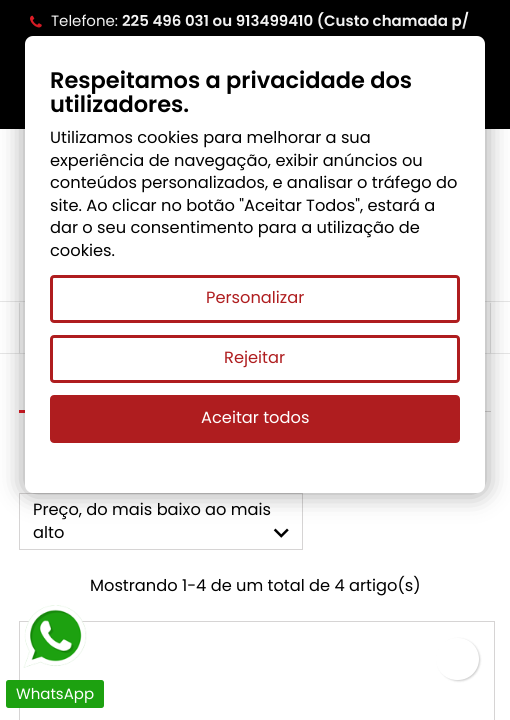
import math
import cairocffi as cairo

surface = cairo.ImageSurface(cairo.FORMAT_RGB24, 510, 720)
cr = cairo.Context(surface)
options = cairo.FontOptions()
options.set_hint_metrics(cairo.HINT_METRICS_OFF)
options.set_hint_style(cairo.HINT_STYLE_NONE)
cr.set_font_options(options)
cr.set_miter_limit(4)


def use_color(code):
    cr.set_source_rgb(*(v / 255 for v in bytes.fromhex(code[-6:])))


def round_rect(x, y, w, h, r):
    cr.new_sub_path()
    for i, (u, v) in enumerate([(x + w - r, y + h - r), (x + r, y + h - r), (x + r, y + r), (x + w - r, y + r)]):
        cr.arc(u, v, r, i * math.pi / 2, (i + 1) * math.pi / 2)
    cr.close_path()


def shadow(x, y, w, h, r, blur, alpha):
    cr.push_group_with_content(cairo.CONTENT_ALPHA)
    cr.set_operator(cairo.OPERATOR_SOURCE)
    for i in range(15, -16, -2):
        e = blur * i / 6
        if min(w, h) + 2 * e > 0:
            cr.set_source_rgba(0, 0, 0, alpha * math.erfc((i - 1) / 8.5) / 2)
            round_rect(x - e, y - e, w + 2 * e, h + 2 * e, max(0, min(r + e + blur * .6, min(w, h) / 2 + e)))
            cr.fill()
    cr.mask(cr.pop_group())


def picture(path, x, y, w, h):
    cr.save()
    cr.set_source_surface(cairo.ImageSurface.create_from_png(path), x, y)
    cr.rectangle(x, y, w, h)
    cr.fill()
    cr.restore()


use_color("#ffffff")
cr.paint()
use_color("#000000")
cr.rectangle(0, 0, 510, 129)
cr.fill()
picture("img1.png", 30, 15, 12, 13)
cr.select_font_face("Poppins")
cr.set_font_size(15)
use_color("#ffffff")
cr.move_to(51, 26)
cr.show_text("Telefone:")
cr.select_font_face("Poppins SemiBold")
cr.move_to(122, 26)
cr.show_text("225 496 031 ou 913499410 (Custo chamada p/")
use_color("#e6e6e6")
cr.rectangle(0, 301, 510, 1)
cr.fill()
cr.rectangle(0, 353, 510, 1)
cr.fill()
cr.rectangle(19, 303, 1, 50)
cr.fill()
cr.rectangle(490, 303, 1, 50)
cr.fill()
use_color("#d6d4d4")
cr.rectangle(485, 411, 6, 1)
cr.fill()
use_color("#e31d27")
cr.rectangle(19, 410, 6, 3)
cr.fill()
cr.rectangle(19.5, 493.5, 283, 56)
use_color("#d6d4d4")
cr.set_line_width(1)
cr.stroke()
cr.select_font_face("Poppins")
cr.set_font_size(16.25)
use_color("#000000")
cr.move_to(33, 515)
cr.show_text("Preço, do mais baixo ao mais")
cr.move_to(33, 538)
cr.show_text("alto")
picture("img2.png", 273, 528, 16, 10)
cr.move_to(90, 591)
cr.show_text("Mostrando 1-4 de um total de 4 artigo(s)")
cr.rectangle(19.5, 621.5, 475, 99)
use_color("#d6d4d4")
cr.stroke()
use_color("#000000")
shadow(438, 639, 42, 42, 21, 1, 0.2)
use_color("#ffffff")
round_rect(436, 638, 43, 42, 21)
cr.fill()
picture("img3.png", 23, 605, 64, 63)
use_color("#1da110")
round_rect(6, 680, 98, 28, 2.5)
cr.fill()
cr.set_font_size(15)
use_color("#ffffff")
cr.move_to(16, 699)
cr.show_text("WhatsApp")
use_color("#000000")
shadow(25, 36, 460, 457, 8, 12.5, 0.4)
use_color("#ffffff")
round_rect(25, 36, 460, 457, 8)
cr.fill()
cr.select_font_face("Poppins SemiBold")
cr.set_font_size(22.5)
use_color("#000000")
cr.move_to(50, 88)
cr.show_text("Respeitamos a privacidade dos")
cr.move_to(50, 112)
cr.show_text("utilizadores.")
cr.select_font_face("Poppins")
cr.set_font_size(16.25)
cr.move_to(50, 143)
cr.show_text("Utilizamos cookies para melhorar a sua")
cr.move_to(50, 166)
cr.show_text("experiência de navegação, exibir anúncios ou")
cr.move_to(50, 188)
cr.show_text("conteúdos personalizados, e analisar o tráfego do")
cr.move_to(50, 211)
cr.show_text("site. Ao clicar no botão \"Aceitar Todos\", estará a")
cr.move_to(50, 233)
cr.show_text("dar o seu consentimento para a utilização de")
cr.move_to(50, 256)
cr.show_text("cookies.")
round_rect(51.5, 276.5, 407, 45, 2.5)
use_color("#af1d1f")
cr.set_line_width(3)
cr.stroke()
cr.move_to(206, 303)
cr.show_text("Personalizar")
round_rect(51.5, 336.5, 407, 45, 2.5)
cr.stroke()
cr.move_to(224, 363)
cr.show_text("Rejeitar")
round_rect(51.5, 396.5, 407, 45, 2.5)
cr.fill_preserve()
cr.stroke()
use_color("#ffffff")
cr.move_to(201, 423)
cr.show_text("Aceitar todos")
surface.write_to_png("result.png")
